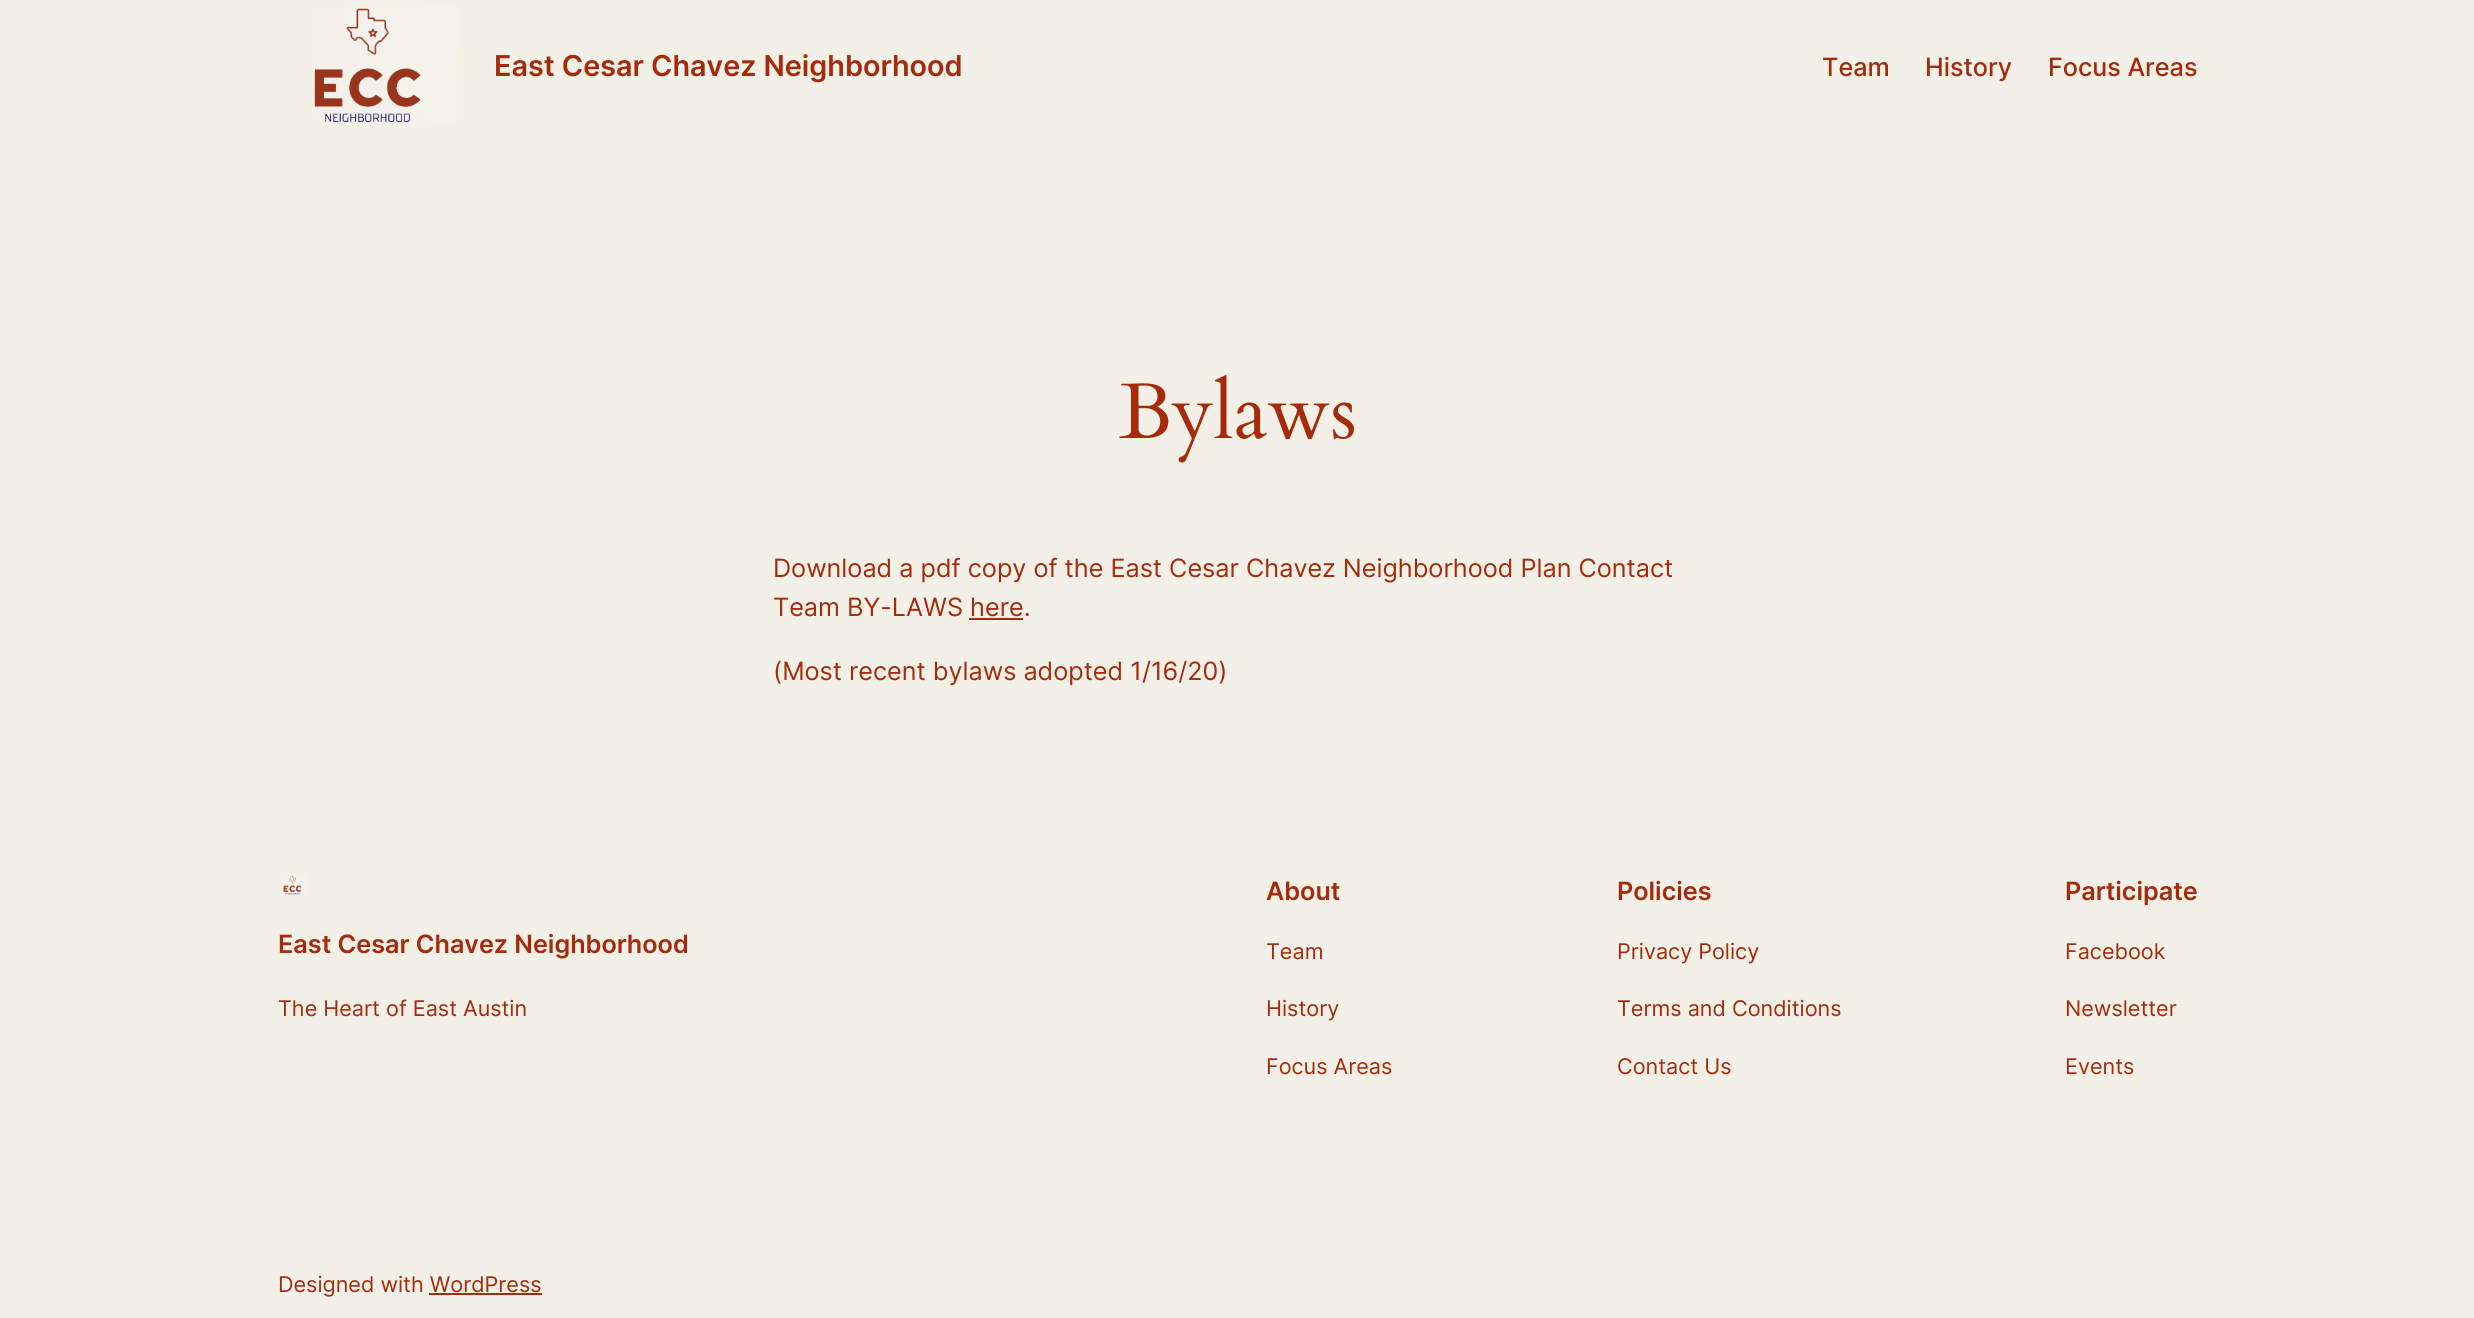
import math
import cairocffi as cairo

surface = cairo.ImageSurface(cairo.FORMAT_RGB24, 2474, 1318)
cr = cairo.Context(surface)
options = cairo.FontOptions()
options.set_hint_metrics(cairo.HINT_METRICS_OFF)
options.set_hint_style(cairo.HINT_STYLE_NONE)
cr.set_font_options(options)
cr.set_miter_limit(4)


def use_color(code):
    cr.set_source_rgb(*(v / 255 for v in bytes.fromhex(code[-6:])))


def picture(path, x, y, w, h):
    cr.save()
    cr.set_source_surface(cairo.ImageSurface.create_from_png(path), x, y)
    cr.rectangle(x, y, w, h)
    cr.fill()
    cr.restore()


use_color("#f3f0e7")
cr.paint()
picture("img1.png", 314, 7, 143, 115)
cr.select_font_face("Inter SemiBold")
cr.set_font_size(28.75)
use_color("#a62b0c")
cr.move_to(494, 76)
cr.show_text("East Cesar Chavez Neighborhood")
cr.select_font_face("Inter Medium")
cr.set_font_size(25.2)
cr.move_to(1822, 76)
cr.show_text("Team")
cr.move_to(1925, 76)
cr.show_text("History")
cr.move_to(2048, 76)
cr.show_text("Focus Areas")
picture("img2.png", 1119, 375, 235, 88)
cr.select_font_face("Inter")
cr.move_to(773, 577)
cr.show_text("Download a pdf copy of the East Cesar Chavez Neighborhood Plan Contact")
cr.move_to(773, 616)
cr.show_text("Team BY-LAWS here.")
cr.rectangle(969, 618, 54, 2)
cr.fill()
cr.move_to(773, 680)
cr.show_text("(Most recent bylaws adopted 1/16/20)")
picture("img3.png", 283, 875, 24, 20)
cr.select_font_face("Inter SemiBold")
cr.move_to(278, 953)
cr.show_text("East Cesar Chavez Neighborhood")
cr.select_font_face("Inter")
cr.set_font_size(21.6)
cr.move_to(278, 1016)
cr.show_text("The Heart of East Austin")
cr.select_font_face("Inter SemiBold")
cr.set_font_size(25.2)
cr.move_to(1266, 900)
cr.show_text("About")
cr.select_font_face("Inter")
cr.set_font_size(21.6)
cr.move_to(1266, 959)
cr.show_text("Team")
cr.move_to(1266, 1016)
cr.show_text("History")
cr.move_to(1266, 1074)
cr.show_text("Focus Areas")
cr.select_font_face("Inter SemiBold")
cr.set_font_size(25.2)
cr.move_to(1617, 900)
cr.show_text("Policies")
cr.select_font_face("Inter")
cr.set_font_size(21.6)
cr.move_to(1617, 959)
cr.show_text("Privacy Policy")
cr.move_to(1617, 1016)
cr.show_text("Terms and Conditions")
cr.move_to(1617, 1074)
cr.show_text("Contact Us")
cr.select_font_face("Inter SemiBold")
cr.set_font_size(25.2)
cr.move_to(2065, 900)
cr.show_text("Participate")
cr.select_font_face("Inter")
cr.set_font_size(21.6)
cr.move_to(2065, 959)
cr.show_text("Facebook")
cr.move_to(2065, 1016)
cr.show_text("Newsletter")
cr.move_to(2065, 1074)
cr.show_text("Events")
cr.move_to(278, 1292)
cr.show_text("Designed with WordPress")
cr.rectangle(429, 1293, 113, 2)
cr.fill()
surface.write_to_png("result.png")
